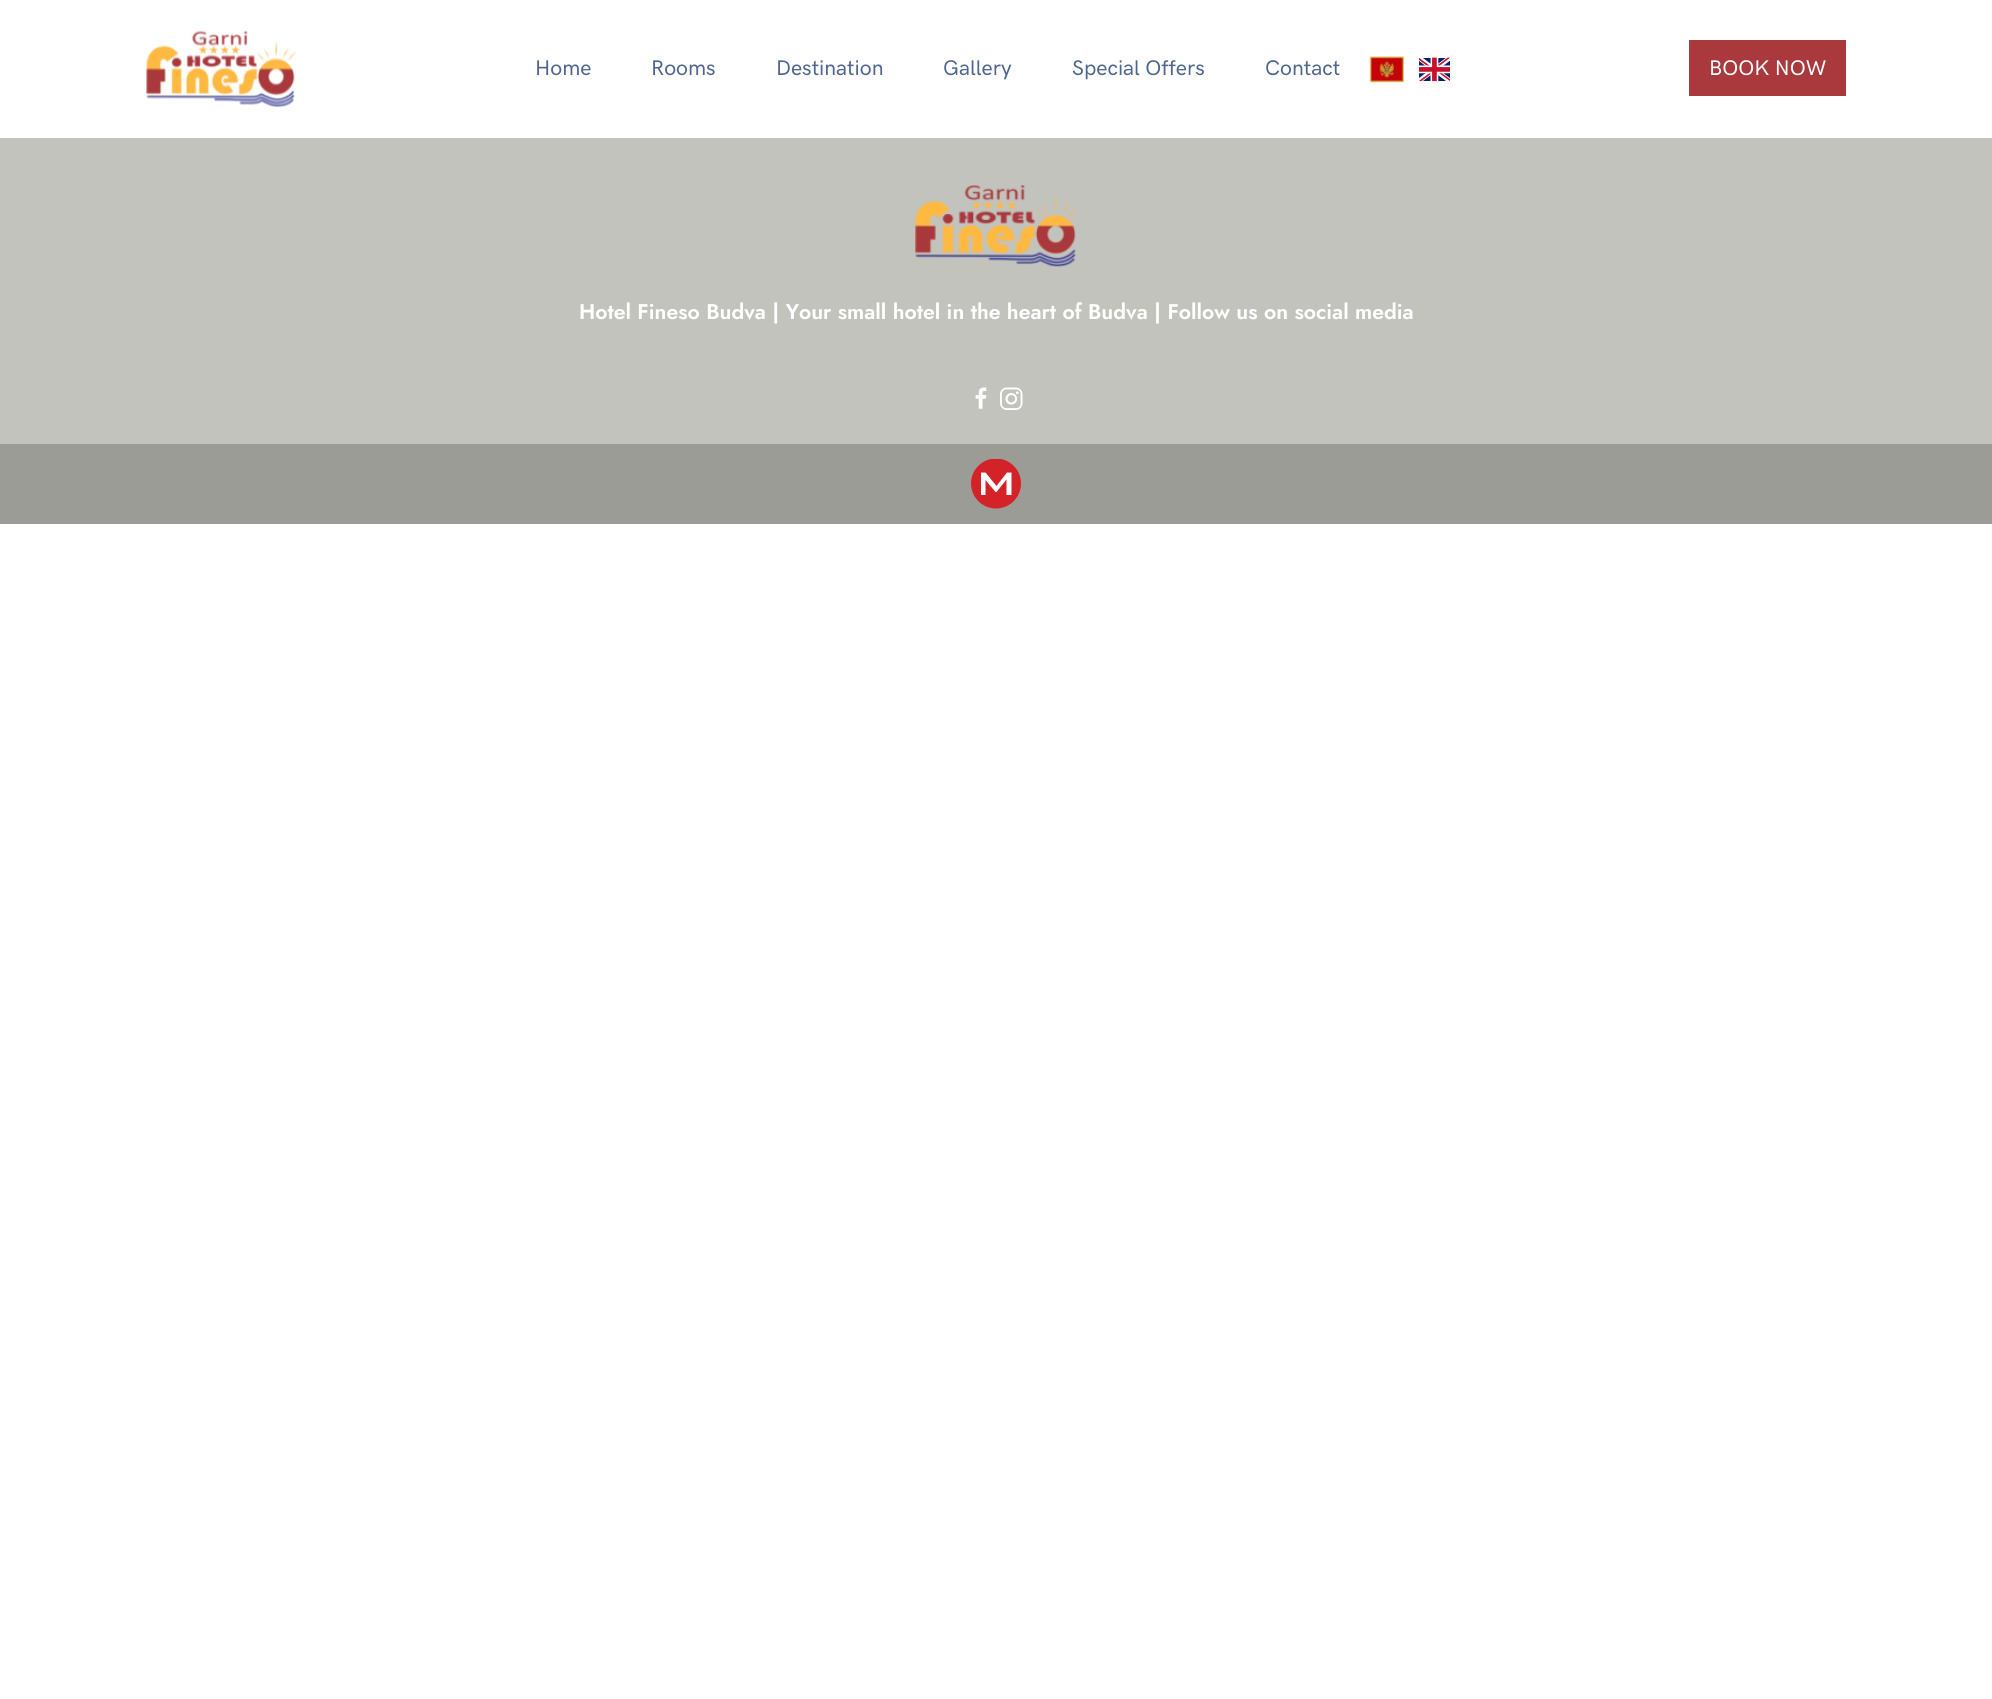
import math
import cairocffi as cairo

surface = cairo.ImageSurface(cairo.FORMAT_RGB24, 1992, 1699)
cr = cairo.Context(surface)
options = cairo.FontOptions()
options.set_hint_metrics(cairo.HINT_METRICS_OFF)
options.set_hint_style(cairo.HINT_STYLE_NONE)
cr.set_font_options(options)
cr.set_miter_limit(4)


def use_color(code):
    cr.set_source_rgb(*(v / 255 for v in bytes.fromhex(code[-6:])))


def picture(path, x, y, w, h):
    cr.save()
    cr.set_source_surface(cairo.ImageSurface.create_from_png(path), x, y)
    cr.rectangle(x, y, w, h)
    cr.fill()
    cr.restore()


use_color("#ffffff")
cr.paint()
picture("img1.png", 146, 30, 150, 77)
cr.select_font_face("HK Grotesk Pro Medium")
cr.set_font_size(21.25)
use_color("#506690")
cr.move_to(535, 75)
cr.show_text("Home")
cr.move_to(651, 75)
cr.show_text("Rooms")
cr.move_to(776, 75)
cr.show_text("Destination")
cr.move_to(943, 75)
cr.show_text("Gallery")
cr.move_to(1072, 75)
cr.show_text("Special Offers")
cr.move_to(1265, 75)
cr.show_text("Contact")
picture("img2.png", 1369, 56, 35, 27)
picture("img3.png", 1419, 57, 31, 25)
use_color("#a9393d")
cr.rectangle(1689, 40, 157, 56)
cr.fill()
use_color("#ffffff")
cr.move_to(1709, 75)
cr.show_text("BOOK NOW")
use_color("#c3c3bd")
cr.rectangle(0, 138, 1992, 306)
cr.fill()
picture("img4.png", 915, 185, 163, 82)
cr.select_font_face("Jost SemiBold")
use_color("#ffffff")
cr.move_to(579, 319)
cr.show_text("Hotel Fineso Budva | Your small hotel in the heart of Budva | Follow us on social media")
picture("img5.png", 975, 387, 12, 22)
picture("img6.png", 1000, 387, 23, 23)
use_color("#9c9c97")
cr.rectangle(0, 444, 1992, 80)
cr.fill()
cr.save()
cr.rectangle(971, 459, 50, 50)
cr.clip()
use_color("#d32328")
cr.arc(996, 483.5, 25, 0, 2 * math.pi)
cr.fill()
cr.restore()
use_color("#ffffff")
cr.set_fill_rule(cairo.FILL_RULE_EVEN_ODD)
cr.new_path()
cr.move_to(981, 495)
cr.line_to(981, 472.5)
cr.line_to(985.5, 472.5)
cr.line_to(996.5, 486)
cr.line_to(1007, 472.5)
cr.line_to(1011.5, 472.5)
cr.line_to(1011.5, 495)
cr.line_to(1006.5, 495)
cr.line_to(1006.5, 479.5)
cr.line_to(996.5, 492)
cr.line_to(995.5, 492)
cr.line_to(985.5, 480)
cr.line_to(985.5, 495)
cr.close_path()
cr.fill()
surface.write_to_png("result.png")
